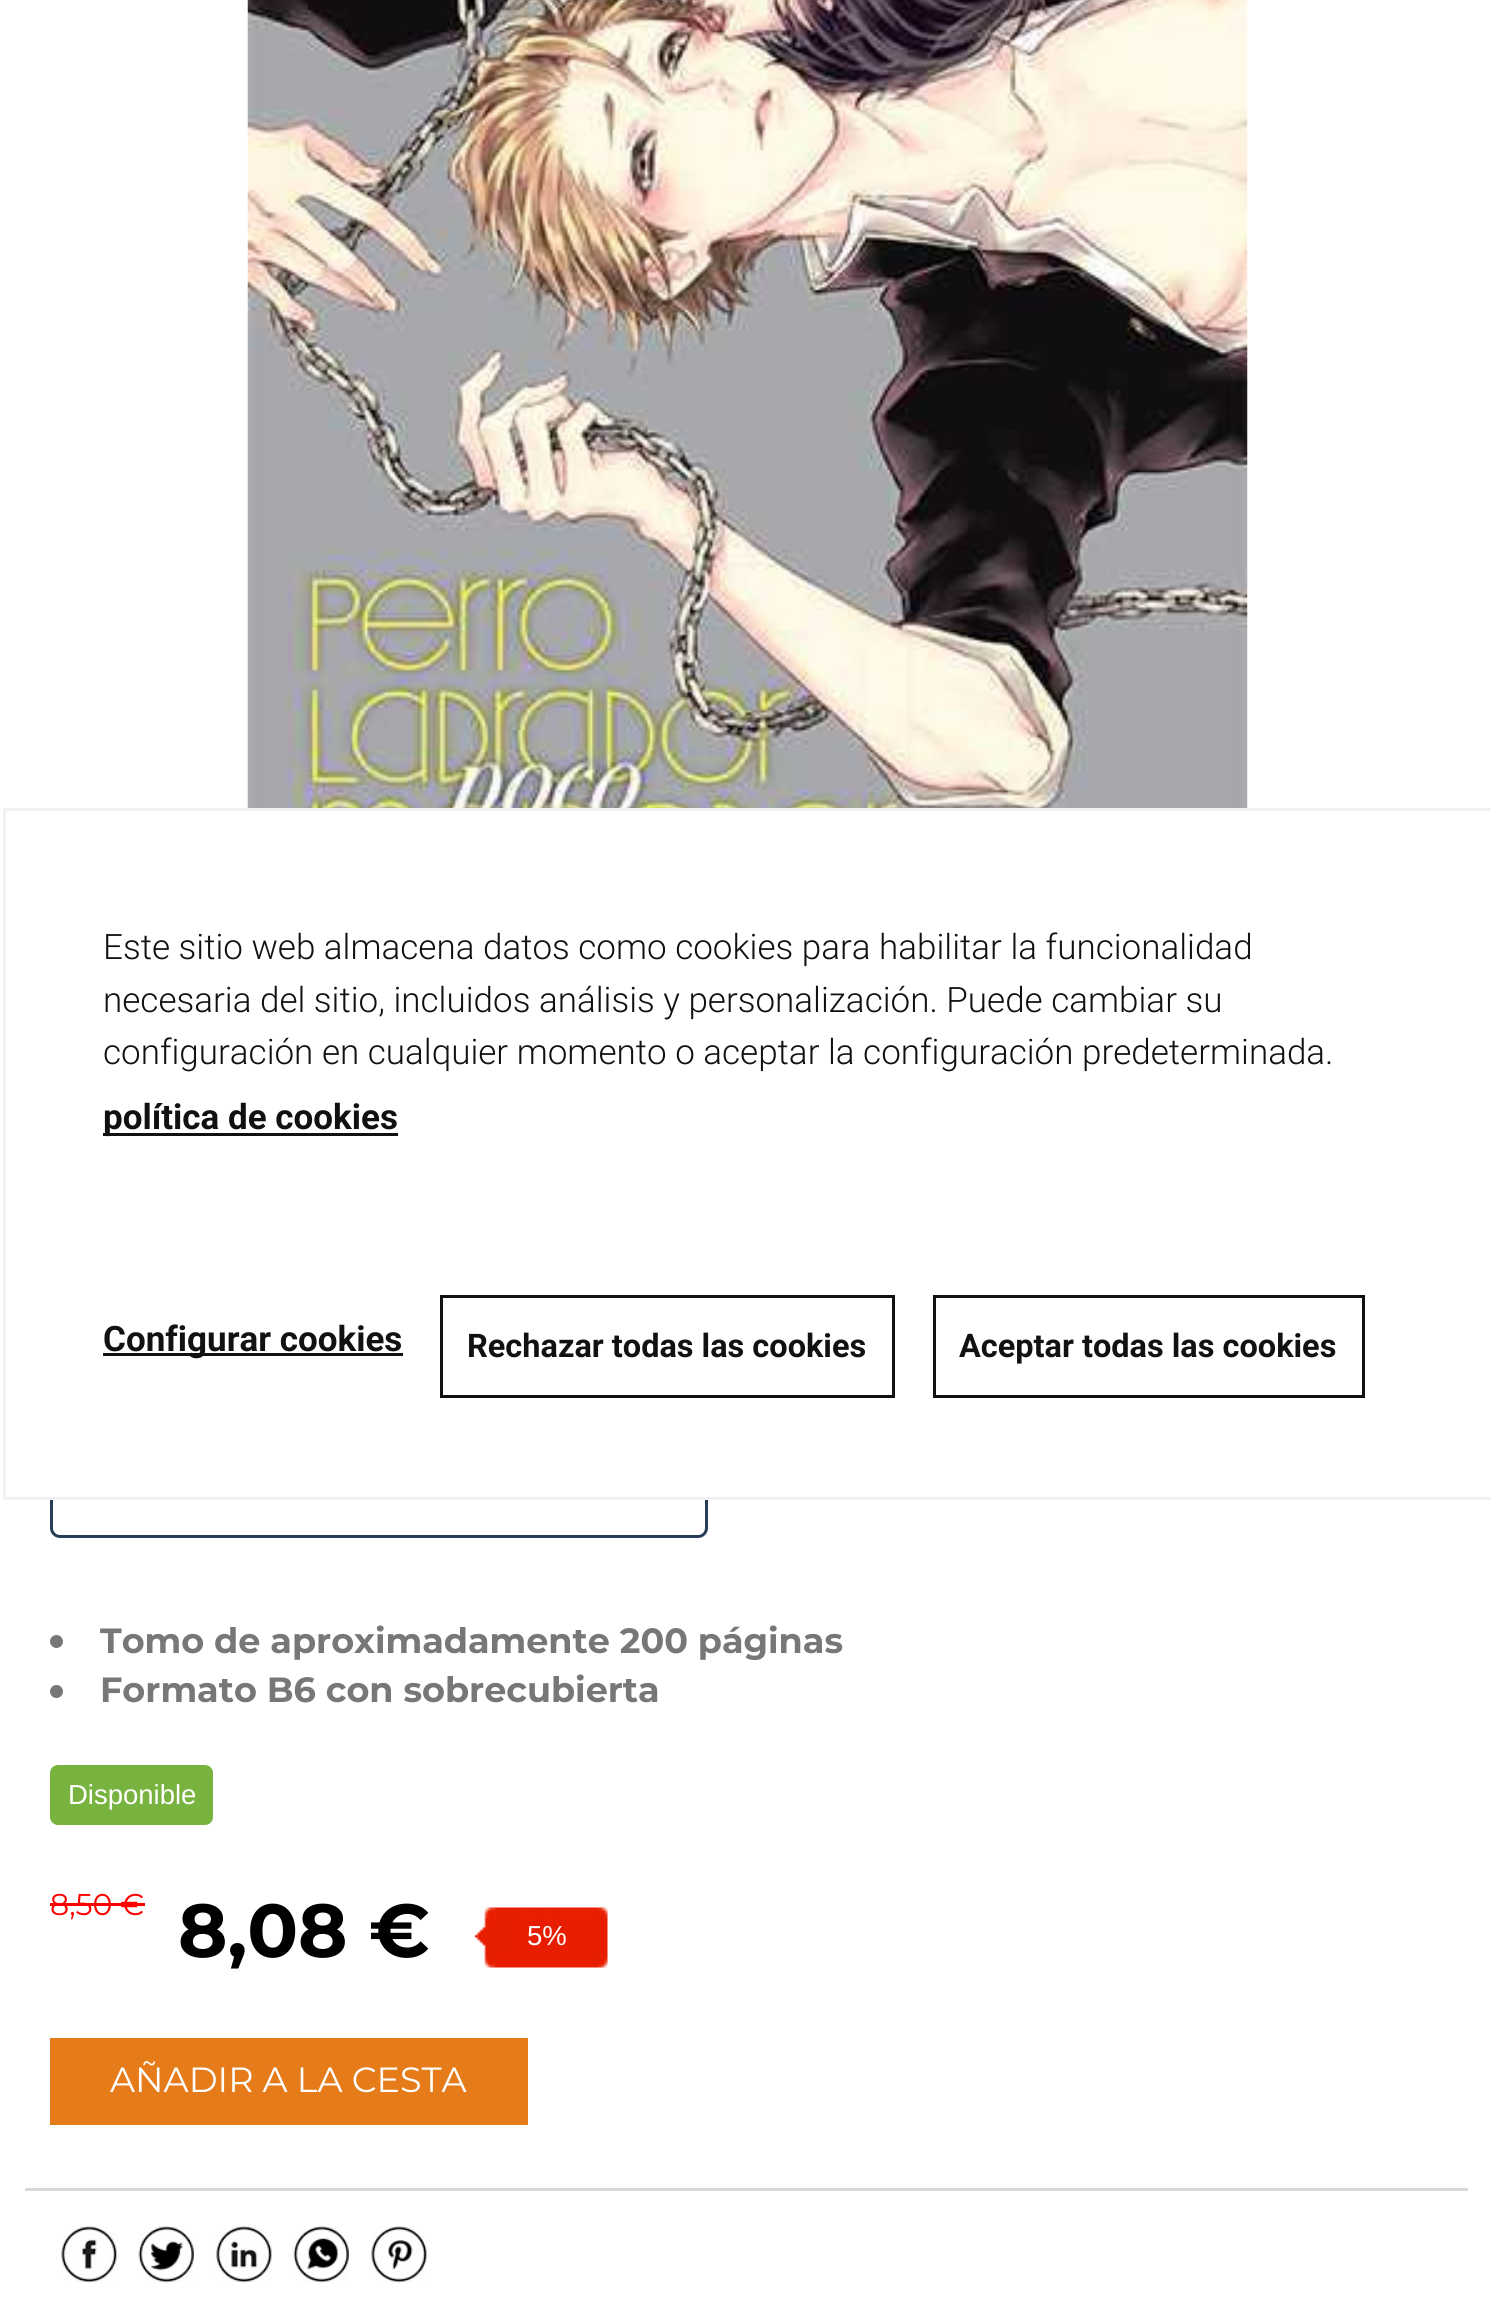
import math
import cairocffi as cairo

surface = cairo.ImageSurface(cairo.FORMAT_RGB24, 1491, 2306)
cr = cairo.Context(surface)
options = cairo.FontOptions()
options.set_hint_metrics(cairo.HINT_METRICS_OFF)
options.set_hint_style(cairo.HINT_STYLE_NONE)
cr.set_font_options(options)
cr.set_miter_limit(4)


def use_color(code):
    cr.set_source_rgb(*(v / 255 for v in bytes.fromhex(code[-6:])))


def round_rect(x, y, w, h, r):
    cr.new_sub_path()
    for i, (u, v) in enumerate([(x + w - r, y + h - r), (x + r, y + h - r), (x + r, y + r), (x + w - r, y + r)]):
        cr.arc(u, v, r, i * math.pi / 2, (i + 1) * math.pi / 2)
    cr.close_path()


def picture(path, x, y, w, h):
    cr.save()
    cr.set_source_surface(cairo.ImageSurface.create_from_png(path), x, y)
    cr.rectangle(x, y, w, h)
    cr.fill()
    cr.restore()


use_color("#ffffff")
cr.paint()
round_rect(51.5, 1461.5, 655, 75, 8.5)
use_color("#273e5b")
cr.set_line_width(3)
cr.stroke()
use_color("#ffffff")
cr.rectangle(50, 1460, 658, 37)
cr.fill()
cr.rectangle(4.5, 809.5, 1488, 689)
use_color("#f1f1f1")
cr.stroke()
cr.select_font_face("Roboto Light")
cr.set_font_size(35)
use_color("#111111")
cr.move_to(103, 959)
cr.show_text("Este sitio web almacena datos como cookies para habilitar la funcionalidad")
cr.move_to(103, 1012)
cr.show_text("necesaria del sitio, incluidos análisis y personalización. Puede cambiar su")
cr.move_to(103, 1064)
cr.show_text("configuración en cualquier momento o aceptar la configuración predeterminada.")
cr.rectangle(103, 1133, 295, 3)
cr.fill()
cr.select_font_face("Roboto", cairo.FONT_SLANT_NORMAL, cairo.FONT_WEIGHT_BOLD)
cr.move_to(103, 1129)
cr.show_text("política de cookies")
cr.rectangle(103, 1353, 300, 3)
cr.fill()
cr.move_to(103, 1351)
cr.show_text("Configurar cookies")
cr.rectangle(441.5, 1296.5, 452, 100)
cr.stroke()
cr.set_font_size(32.5)
cr.move_to(467, 1357)
cr.show_text("Rechazar todas las cookies")
cr.rectangle(934.5, 1296.5, 429, 100)
cr.stroke()
cr.move_to(959, 1357)
cr.show_text("Aceptar todas las cookies")
picture("img1.png", 247, 0, 1001, 808)
use_color("#777777")
cr.arc(56.5, 1641.5, 6.5, 0, 2 * math.pi)
cr.fill()
cr.select_font_face("Montserrat", cairo.FONT_SLANT_NORMAL, cairo.FONT_WEIGHT_BOLD)
cr.set_font_size(35)
cr.move_to(100, 1653)
cr.show_text("Tomo de aproximadamente 200 páginas")
cr.new_path()
cr.arc(56.5, 1691.5, 6.5, 0, 2 * math.pi)
cr.fill()
cr.move_to(100, 1702)
cr.show_text("Formato B6 con sobrecubierta")
use_color("#79b33f")
round_rect(50, 1765, 163, 60, 8)
cr.fill()
cr.select_font_face("Liberation Sans")
cr.set_font_size(27.5)
use_color("#ffffff")
cr.move_to(68, 1804)
cr.show_text("Disponible")
cr.select_font_face("Montserrat")
cr.set_font_size(30)
use_color("#ff0000")
cr.move_to(50, 1915)
cr.show_text("8,50 €")
cr.rectangle(50, 1903, 95, 3)
cr.fill()
cr.select_font_face("Montserrat", cairo.FONT_SLANT_NORMAL, cairo.FONT_WEIGHT_BOLD)
cr.set_font_size(75)
use_color("#000000")
cr.move_to(178, 1957)
cr.show_text("8,08 €")
picture("img2.png", 475, 1907, 133, 61)
cr.select_font_face("Liberation Sans")
cr.set_font_size(27.5)
use_color("#ffffff")
cr.move_to(527, 1945)
cr.show_text("5%")
use_color("#e67c19")
cr.rectangle(50, 2038, 478, 87)
cr.fill()
cr.select_font_face("Montserrat")
cr.set_font_size(35)
use_color("#ffffff")
cr.move_to(110, 2092)
cr.show_text("AÑADIR A LA CESTA")
use_color("#d9d9d9")
cr.rectangle(25, 2188, 1443, 3)
cr.fill()
picture("img3.png", 61, 2226, 56, 57)
picture("img4.png", 138, 2226, 56, 57)
picture("img5.png", 214, 2226, 58, 57)
picture("img6.png", 293, 2226, 56, 57)
picture("img7.png", 370, 2226, 57, 57)
surface.write_to_png("result.png")
